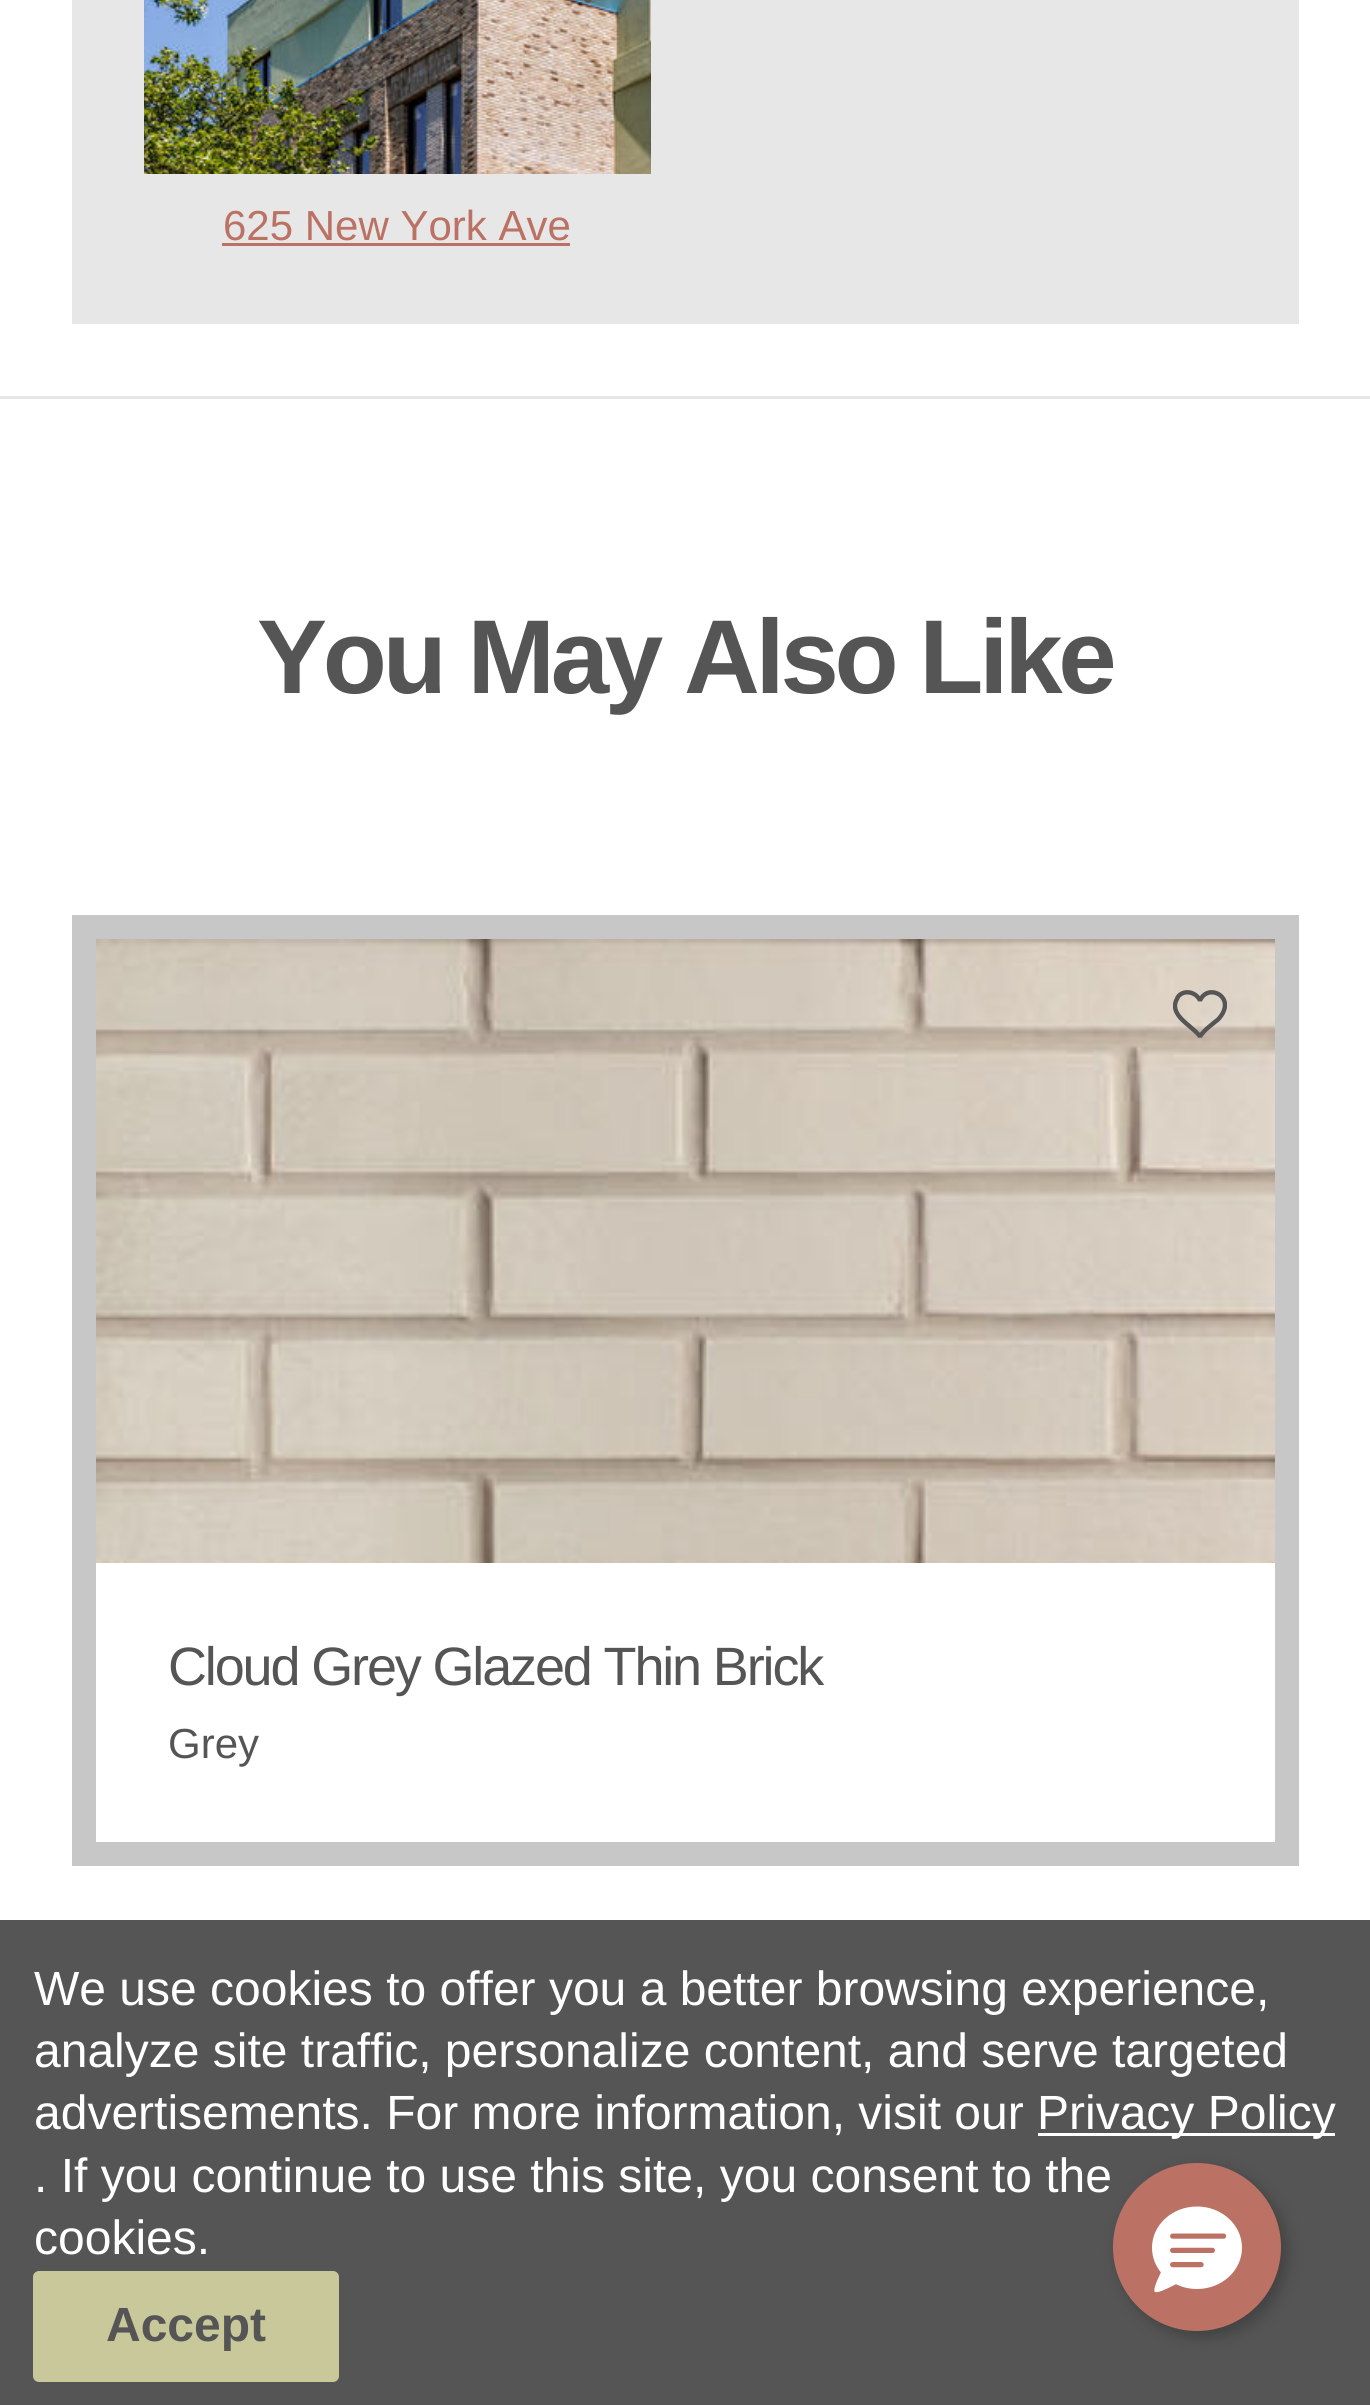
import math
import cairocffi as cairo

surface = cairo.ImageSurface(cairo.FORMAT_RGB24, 1370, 2405)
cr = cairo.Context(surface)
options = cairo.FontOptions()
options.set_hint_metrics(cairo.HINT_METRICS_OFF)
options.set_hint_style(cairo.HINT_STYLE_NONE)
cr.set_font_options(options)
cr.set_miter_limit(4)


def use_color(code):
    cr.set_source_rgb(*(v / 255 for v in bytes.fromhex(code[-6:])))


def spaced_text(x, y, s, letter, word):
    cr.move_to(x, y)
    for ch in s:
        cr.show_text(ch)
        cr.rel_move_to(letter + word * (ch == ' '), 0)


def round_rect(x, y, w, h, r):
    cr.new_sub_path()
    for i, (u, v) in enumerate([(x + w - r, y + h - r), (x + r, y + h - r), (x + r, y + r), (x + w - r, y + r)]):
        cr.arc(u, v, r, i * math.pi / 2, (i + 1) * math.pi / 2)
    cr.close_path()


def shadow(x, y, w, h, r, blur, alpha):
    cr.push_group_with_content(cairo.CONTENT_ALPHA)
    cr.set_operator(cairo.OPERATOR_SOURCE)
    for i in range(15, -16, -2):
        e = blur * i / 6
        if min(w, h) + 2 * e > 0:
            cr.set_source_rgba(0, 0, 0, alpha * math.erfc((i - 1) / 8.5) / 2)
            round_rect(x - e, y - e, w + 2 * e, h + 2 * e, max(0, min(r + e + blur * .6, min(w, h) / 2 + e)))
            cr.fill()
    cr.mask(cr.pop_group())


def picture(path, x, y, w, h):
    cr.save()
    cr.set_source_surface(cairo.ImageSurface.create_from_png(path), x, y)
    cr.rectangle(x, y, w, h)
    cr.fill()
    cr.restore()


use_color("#ffffff")
cr.paint()
use_color("#e7e7e7")
cr.rectangle(72, 0, 1227, 324)
cr.fill()
picture("img1.png", 144, 0, 507, 174)
cr.new_path()
cr.move_to(606, -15.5)
cr.curve_to(599.5, -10, 592.5, -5.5, 588, 1.5)
cr.curve_to(580.5, -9.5, 555, -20, 565.5, -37)
cr.line_to(565.5, -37.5)
cr.curve_to(571, -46, 584, -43.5, 588, -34.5)
cr.curve_to(596, -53, 626, -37.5, 606.5, -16)
cr.close_path()
use_color("#555555")
cr.set_line_width(4.4)
cr.set_line_join(cairo.LINE_JOIN_BEVEL)
cr.stroke()
cr.select_font_face("Liberation Sans")
cr.set_font_size(42)
use_color("#bb7265")
cr.move_to(223, 240)
cr.show_text("625 New York Ave")
cr.rectangle(222, 243, 348, 3)
cr.fill()
use_color("#e7e7e7")
cr.rectangle(0, 396, 1370, 3)
cr.fill()
cr.select_font_face("Liberation Sans", cairo.FONT_SLANT_NORMAL, cairo.FONT_WEIGHT_BOLD)
cr.set_font_size(105)
use_color("#555555")
spaced_text(257, 693, "You May Also Like", -4.25, 0)
cr.rectangle(84, 927, 1203, 927)
use_color("#c7c7c7")
cr.set_line_width(24)
cr.set_line_join(cairo.LINE_JOIN_MITER)
cr.stroke()
picture("img2.png", 96, 939, 1179, 624)
cr.save()
cr.rectangle(1173, 987, 54, 54)
cr.clip()
cr.new_path()
cr.move_to(1218, 1019.5)
cr.curve_to(1211.5, 1025, 1204.5, 1029.5, 1200, 1036.5)
cr.curve_to(1192.5, 1025.5, 1167, 1015, 1177.5, 998)
cr.line_to(1177.5, 997.5)
cr.curve_to(1183, 989, 1196, 991.5, 1200, 1000.5)
cr.curve_to(1208, 982, 1238, 997.5, 1218.5, 1019)
cr.close_path()
use_color("#555555")
cr.set_line_width(4.4)
cr.set_line_join(cairo.LINE_JOIN_BEVEL)
cr.stroke()
cr.restore()
cr.select_font_face("Liberation Sans")
cr.set_font_size(54)
use_color("#555555")
spaced_text(168, 1685, "Cloud Grey Glazed Thin Brick", -2.15, 0)
cr.set_font_size(42)
cr.move_to(168, 1758)
cr.show_text("Grey")
cr.rectangle(0, 1920, 1370, 485)
cr.fill()
cr.set_font_size(48)
use_color("#ffffff")
cr.move_to(34, 2005)
cr.show_text("We use cookies to offer you a better browsing experience,")
cr.move_to(34, 2067)
cr.show_text("analyze site traffic, personalize content, and serve targeted")
cr.move_to(34, 2129)
cr.show_text("advertisements. For more information, visit our")
cr.rectangle(1038, 2133, 297, 3)
cr.fill()
cr.move_to(1037, 2129)
cr.show_text("Privacy Policy")
cr.move_to(34, 2192)
cr.show_text(". If you continue to use this site, you consent to the")
cr.move_to(34, 2254)
cr.show_text("cookies.")
use_color("#c9c89b")
round_rect(33, 2271, 306, 111, 6)
cr.fill()
cr.select_font_face("Liberation Sans", cairo.FONT_SLANT_NORMAL, cairo.FONT_WEIGHT_BOLD)
use_color("#555555")
cr.move_to(106, 2341)
cr.show_text("Accept")
use_color("#2d2d2d")
shadow(1119, 2169, 168, 168, 84, 7.5, 0.5)
use_color("#bb7265")
cr.arc(1197, 2247, 84, 0, 2 * math.pi)
cr.fill()
picture("img3.png", 1152, 2206, 90, 87)
surface.write_to_png("result.png")
